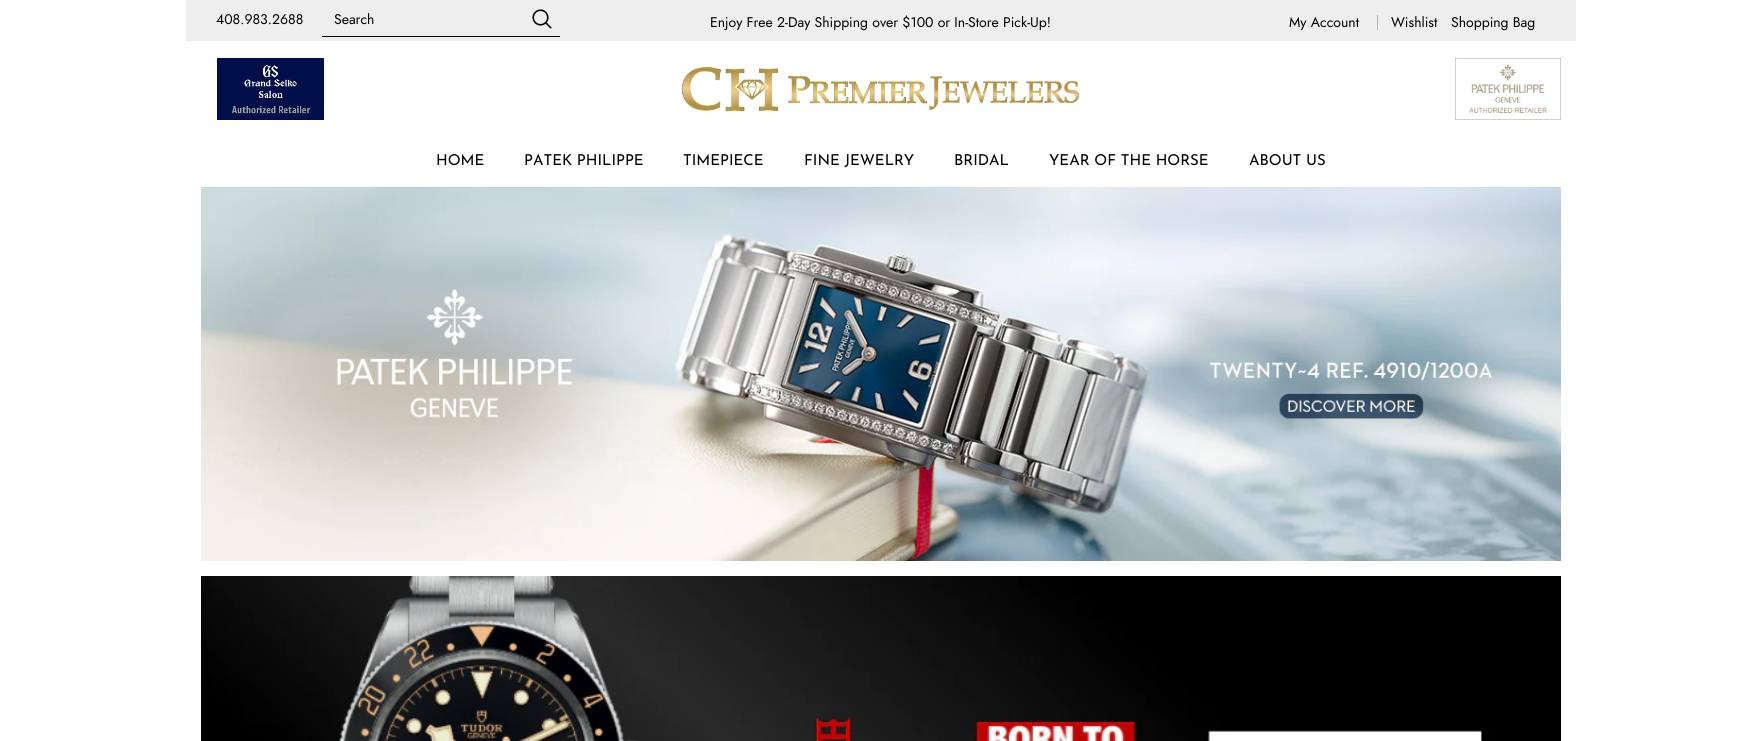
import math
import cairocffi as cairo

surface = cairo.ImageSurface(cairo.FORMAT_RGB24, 1761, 741)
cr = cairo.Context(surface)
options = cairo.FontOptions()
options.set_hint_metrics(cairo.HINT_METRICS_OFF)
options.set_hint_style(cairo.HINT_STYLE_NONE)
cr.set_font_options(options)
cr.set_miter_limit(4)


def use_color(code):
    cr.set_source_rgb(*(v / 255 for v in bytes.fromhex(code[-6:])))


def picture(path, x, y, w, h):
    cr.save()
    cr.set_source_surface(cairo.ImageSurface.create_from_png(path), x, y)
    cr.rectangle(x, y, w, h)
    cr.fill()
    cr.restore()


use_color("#ffffff")
cr.paint()
use_color("#eeeeee")
cr.rectangle(186, 0, 1390, 41)
cr.fill()
cr.select_font_face("Jost")
cr.set_font_size(14)
use_color("#000000")
cr.move_to(216, 24)
cr.show_text("408.983.2688")
cr.rectangle(322, 36, 238, 1)
cr.fill()
cr.move_to(334, 24)
cr.show_text("Search")
picture("img1.png", 532, 9, 20, 20)
cr.move_to(710, 27)
cr.show_text("Enjoy Free 2-Day Shipping over $100 or In-Store Pick-Up!")
cr.move_to(1289, 27)
cr.show_text("My Account")
use_color("#b3b3b3")
cr.rectangle(1377, 15, 1, 15)
cr.fill()
use_color("#000000")
cr.move_to(1391, 27)
cr.show_text("Wishlist")
cr.move_to(1451, 27)
cr.show_text("Shopping Bag")
picture("img2.png", 217, 58, 107, 62)
picture("img3.png", 681, 66, 399, 46)
picture("img4.png", 1455, 58, 106, 62)
cr.select_font_face("Josefin Sans")
cr.set_font_size(15)
cr.move_to(436, 165)
cr.show_text("HOME")
cr.move_to(524, 165)
cr.show_text("PATEK PHILIPPE")
cr.move_to(683, 165)
cr.show_text("TIMEPIECE")
cr.move_to(804, 165)
cr.show_text("FINE JEWELRY")
cr.move_to(954, 165)
cr.show_text("BRIDAL")
cr.move_to(1049, 165)
cr.show_text("YEAR OF THE HORSE")
cr.move_to(1249, 165)
cr.show_text("ABOUT US")
picture("img5.png", 201, 187, 1360, 374)
picture("img6.png", 201, 576, 1360, 165)
surface.write_to_png("result.png")
